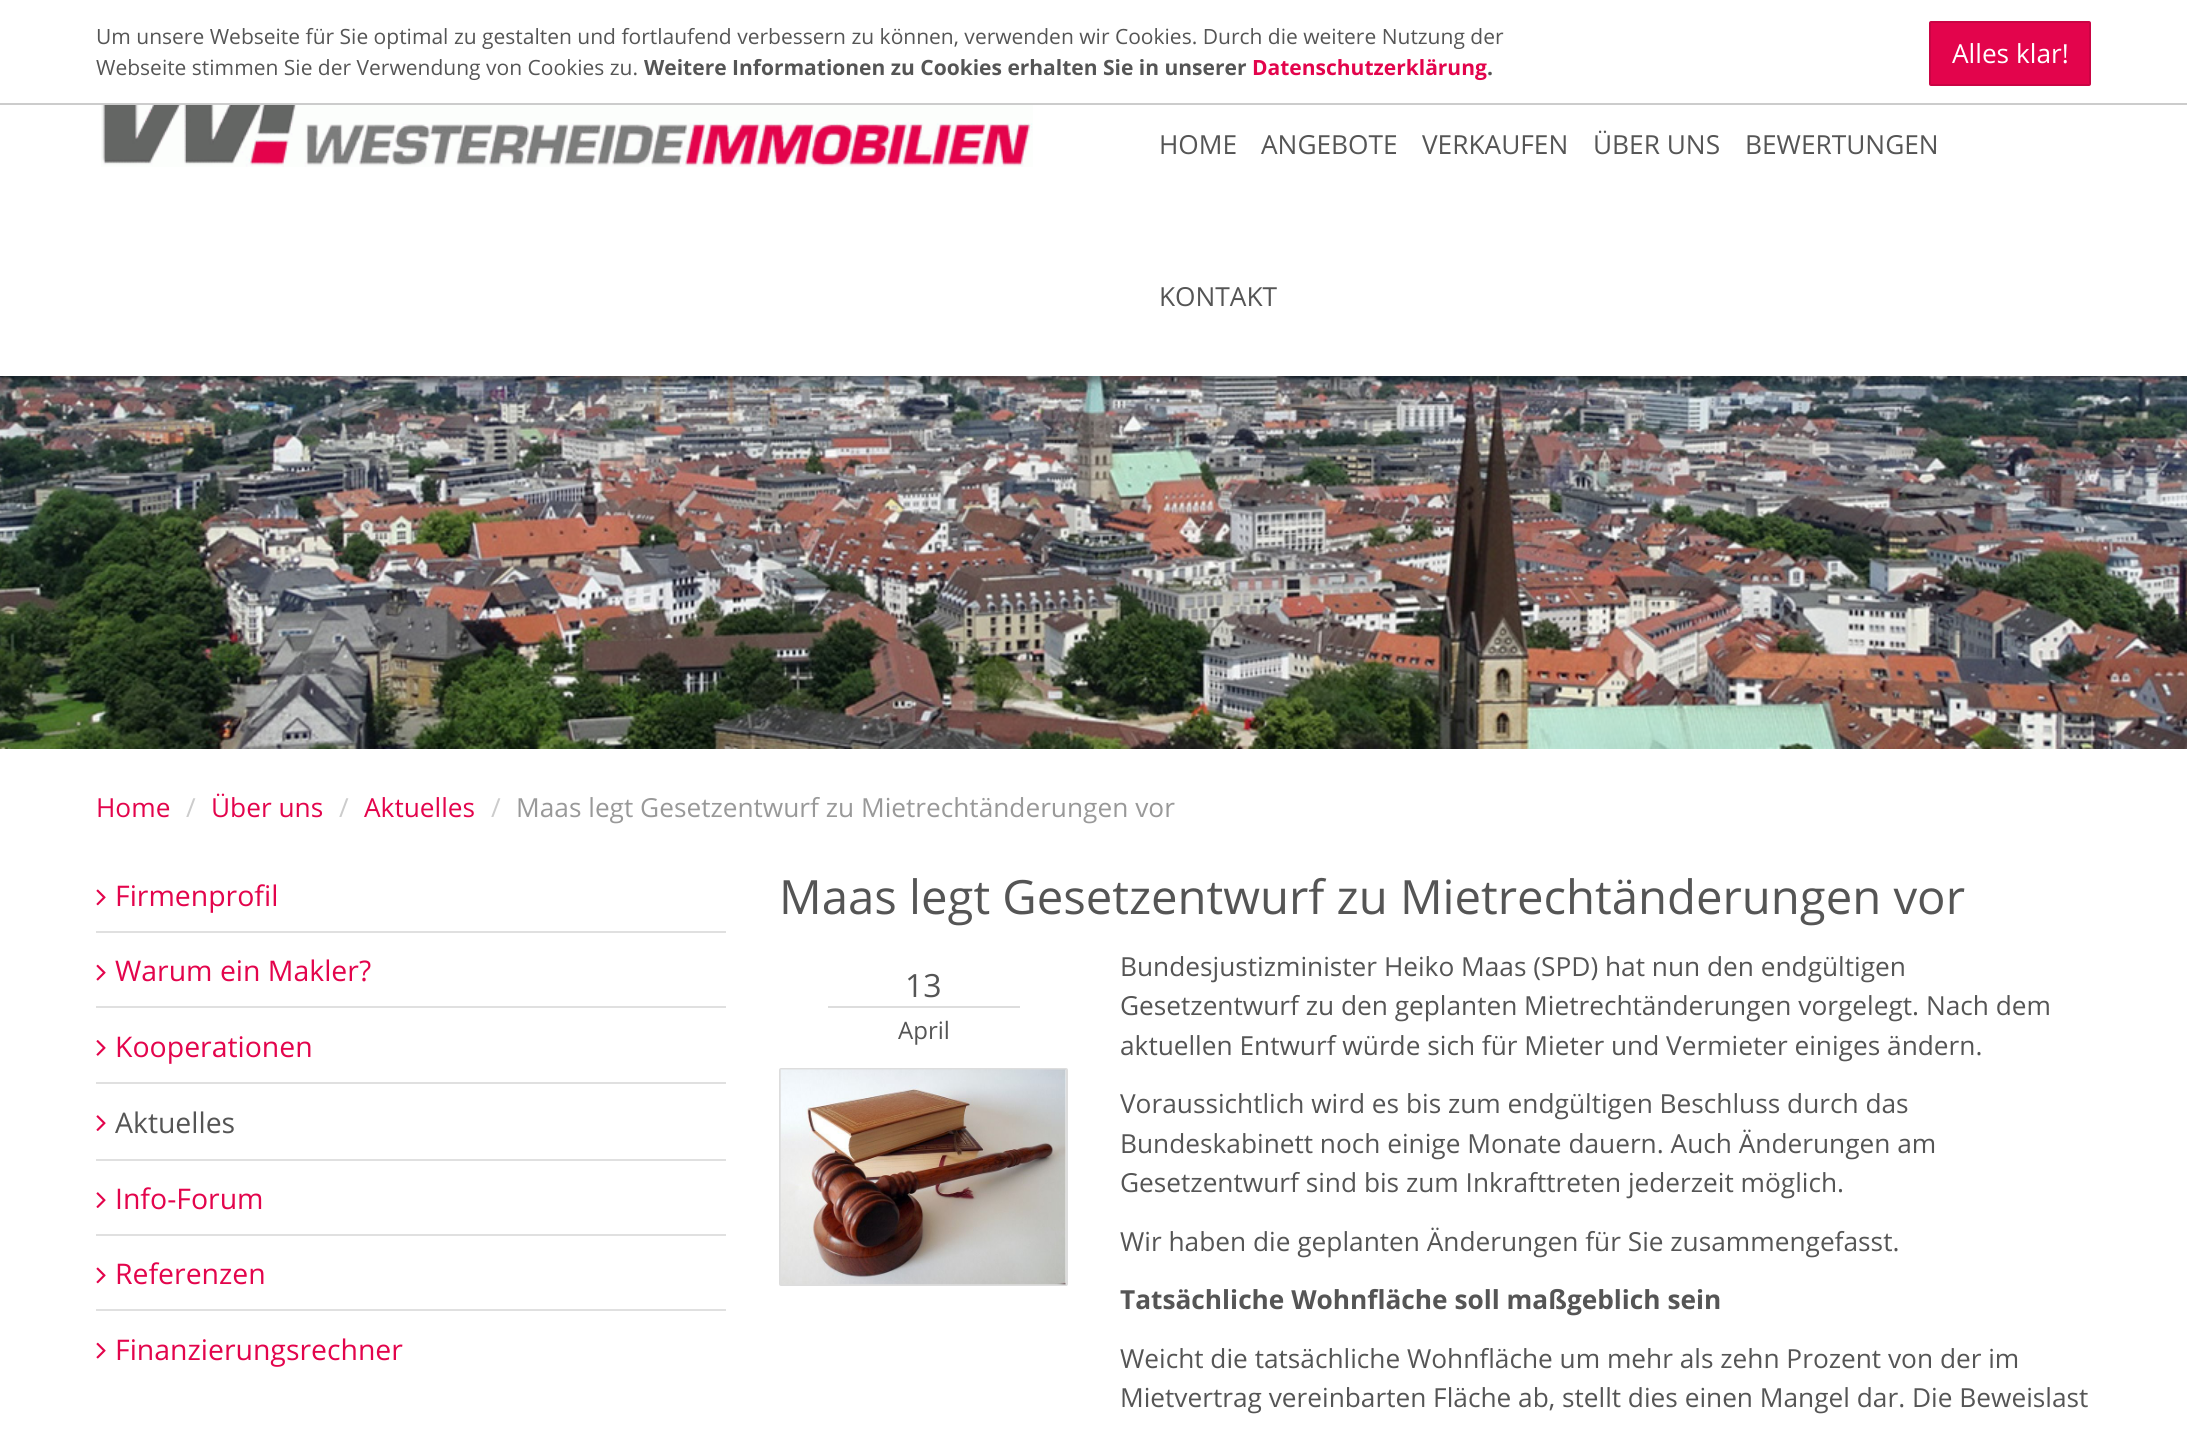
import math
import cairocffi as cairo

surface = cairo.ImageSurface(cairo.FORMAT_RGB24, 2187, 1441)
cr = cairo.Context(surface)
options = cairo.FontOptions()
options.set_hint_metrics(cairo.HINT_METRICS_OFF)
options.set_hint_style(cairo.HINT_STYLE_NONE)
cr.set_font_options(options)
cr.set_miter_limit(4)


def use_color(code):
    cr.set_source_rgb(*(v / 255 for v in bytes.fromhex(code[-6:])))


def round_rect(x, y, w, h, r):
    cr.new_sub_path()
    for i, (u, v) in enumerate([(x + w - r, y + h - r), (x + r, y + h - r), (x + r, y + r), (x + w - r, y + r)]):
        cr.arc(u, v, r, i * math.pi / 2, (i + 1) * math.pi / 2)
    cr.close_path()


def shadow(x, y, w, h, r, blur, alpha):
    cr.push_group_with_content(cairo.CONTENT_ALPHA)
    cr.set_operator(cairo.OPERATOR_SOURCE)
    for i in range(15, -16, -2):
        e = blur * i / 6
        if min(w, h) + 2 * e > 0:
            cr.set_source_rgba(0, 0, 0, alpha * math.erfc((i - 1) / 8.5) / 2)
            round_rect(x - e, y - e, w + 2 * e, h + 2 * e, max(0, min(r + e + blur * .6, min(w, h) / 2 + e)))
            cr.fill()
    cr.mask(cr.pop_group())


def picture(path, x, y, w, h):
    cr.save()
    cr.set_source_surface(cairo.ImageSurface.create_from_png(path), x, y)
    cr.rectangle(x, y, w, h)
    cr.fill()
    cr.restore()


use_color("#ffffff")
cr.paint()
picture("img2.png", 0, 376, 2187, 373)
use_color("#000000")
shadow(0, 5, 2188, 377, 0, 3.5, 0.4)
use_color("#ffffff")
cr.rectangle(0, 0, 2187, 103)
cr.fill()
use_color("#cccccc")
cr.rectangle(0, 103, 2187, 2)
cr.fill()
cr.select_font_face("Open Sans")
cr.set_font_size(21)
use_color("#555555")
cr.move_to(96, 44)
cr.show_text("Um unsere Webseite für Sie optimal zu gestalten und fortlaufend verbessern zu können, verwenden wir Cookies. Durch die weitere Nutzung der")
cr.move_to(96, 75)
cr.show_text("Webseite stimmen Sie der Verwendung von Cookies zu.")
cr.select_font_face("Open Sans", cairo.FONT_SLANT_NORMAL, cairo.FONT_WEIGHT_BOLD)
cr.move_to(644, 75)
cr.show_text("Weitere Informationen zu Cookies erhalten Sie in unserer")
use_color("#e3044c")
cr.move_to(1252, 75)
cr.show_text("Datenschutzerklärung")
use_color("#555555")
cr.move_to(1487, 75)
cr.show_text(".")
use_color("#e3044c")
round_rect(1930, 22, 160, 63, 1)
cr.fill_preserve()
use_color("#ca0444")
cr.stroke()
cr.select_font_face("Open Sans")
cr.set_font_size(26.25)
use_color("#ffffff")
cr.move_to(1952, 63)
cr.show_text("Alles klar!")
cr.rectangle(0, 105, 2187, 271)
cr.fill()
picture("img1.png", 101, 105, 932, 62)
use_color("#555555")
cr.move_to(1159, 154)
cr.show_text("HOME")
cr.move_to(1261, 154)
cr.show_text("ANGEBOTE")
cr.move_to(1422, 154)
cr.show_text("VERKAUFEN")
cr.move_to(1593, 154)
cr.show_text("ÜBER UNS")
cr.move_to(1745, 154)
cr.show_text("BEWERTUNGEN")
cr.move_to(1159, 306)
cr.show_text("KONTAKT")
use_color("#e3044c")
cr.move_to(96, 817)
cr.show_text("Home")
use_color("#cccccc")
cr.move_to(186, 817)
cr.show_text("/")
use_color("#e3044c")
cr.move_to(211, 817)
cr.show_text("Über uns")
use_color("#cccccc")
cr.move_to(339, 817)
cr.show_text("/")
use_color("#e3044c")
cr.move_to(364, 817)
cr.show_text("Aktuelles")
use_color("#cccccc")
cr.move_to(491, 817)
cr.show_text("/")
use_color("#999999")
cr.move_to(516, 817)
cr.show_text("Maas legt Gesetzentwurf zu Mietrechtänderungen vor")
use_color("#e0e0e0")
cr.rectangle(96, 931, 630, 2)
cr.fill()
picture("img3.png", 96, 889, 10, 17)
cr.set_font_size(28.4)
use_color("#e3044c")
cr.move_to(115, 906)
cr.show_text("Firmenprofil")
use_color("#e0e0e0")
cr.rectangle(96, 1006, 630, 2)
cr.fill()
picture("img4.png", 96, 964, 10, 17)
use_color("#e3044c")
cr.move_to(115, 981)
cr.show_text("Warum ein Makler?")
use_color("#e0e0e0")
cr.rectangle(96, 1082, 630, 2)
cr.fill()
picture("img5.png", 96, 1040, 10, 16)
use_color("#e3044c")
cr.move_to(115, 1057)
cr.show_text("Kooperationen")
use_color("#e0e0e0")
cr.rectangle(96, 1159, 630, 2)
cr.fill()
picture("img6.png", 96, 1115, 10, 16)
use_color("#555555")
cr.move_to(115, 1133)
cr.show_text("Aktuelles")
use_color("#e0e0e0")
cr.rectangle(96, 1234, 630, 2)
cr.fill()
picture("img6.png", 96, 1192, 10, 16)
use_color("#e3044c")
cr.move_to(115, 1209)
cr.show_text("Info-Forum")
use_color("#e0e0e0")
cr.rectangle(96, 1309, 630, 2)
cr.fill()
picture("img3.png", 96, 1267, 10, 17)
use_color("#e3044c")
cr.move_to(115, 1284)
cr.show_text("Referenzen")
picture("img4.png", 96, 1342, 10, 17)
cr.move_to(115, 1360)
cr.show_text("Finanzierungsrechner")
cr.set_font_size(47.25)
use_color("#555555")
cr.move_to(779, 914)
cr.show_text("Maas legt Gesetzentwurf zu Mietrechtänderungen vor")
cr.set_font_size(32)
cr.move_to(905, 997)
cr.show_text("13")
use_color("#dddddd")
cr.rectangle(828, 1006, 192, 2)
cr.fill()
cr.set_font_size(24)
use_color("#555555")
cr.move_to(898, 1039)
cr.show_text("April")
round_rect(780, 1069, 287, 216, 1)
use_color("#dddddd")
cr.stroke()
picture("img7.png", 780, 1069, 286, 216)
cr.set_font_size(26.25)
use_color("#555555")
cr.move_to(1120, 976)
cr.show_text("Bundesjustizminister Heiko Maas (SPD) hat nun den endgültigen")
cr.move_to(1120, 1015)
cr.show_text("Gesetzentwurf zu den geplanten Mietrechtänderungen vorgelegt. Nach dem")
cr.move_to(1120, 1055)
cr.show_text("aktuellen Entwurf würde sich für Mieter und Vermieter einiges ändern.")
cr.move_to(1120, 1113)
cr.show_text("Voraussichtlich wird es bis zum endgültigen Beschluss durch das")
cr.move_to(1120, 1153)
cr.show_text("Bundeskabinett noch einige Monate dauern. Auch Änderungen am")
cr.move_to(1120, 1192)
cr.show_text("Gesetzentwurf sind bis zum Inkrafttreten jederzeit möglich.")
cr.move_to(1120, 1251)
cr.show_text("Wir haben die geplanten Änderungen für Sie zusammengefasst.")
cr.select_font_face("Open Sans", cairo.FONT_SLANT_NORMAL, cairo.FONT_WEIGHT_BOLD)
cr.move_to(1120, 1309)
cr.show_text("Tatsächliche Wohnfläche soll maßgeblich sein")
cr.select_font_face("Open Sans")
cr.move_to(1120, 1368)
cr.show_text("Weicht die tatsächliche Wohnfläche um mehr als zehn Prozent von der im")
cr.move_to(1120, 1407)
cr.show_text("Mietvertrag vereinbarten Fläche ab, stellt dies einen Mangel dar. Die Beweislast")
surface.write_to_png("result.png")
